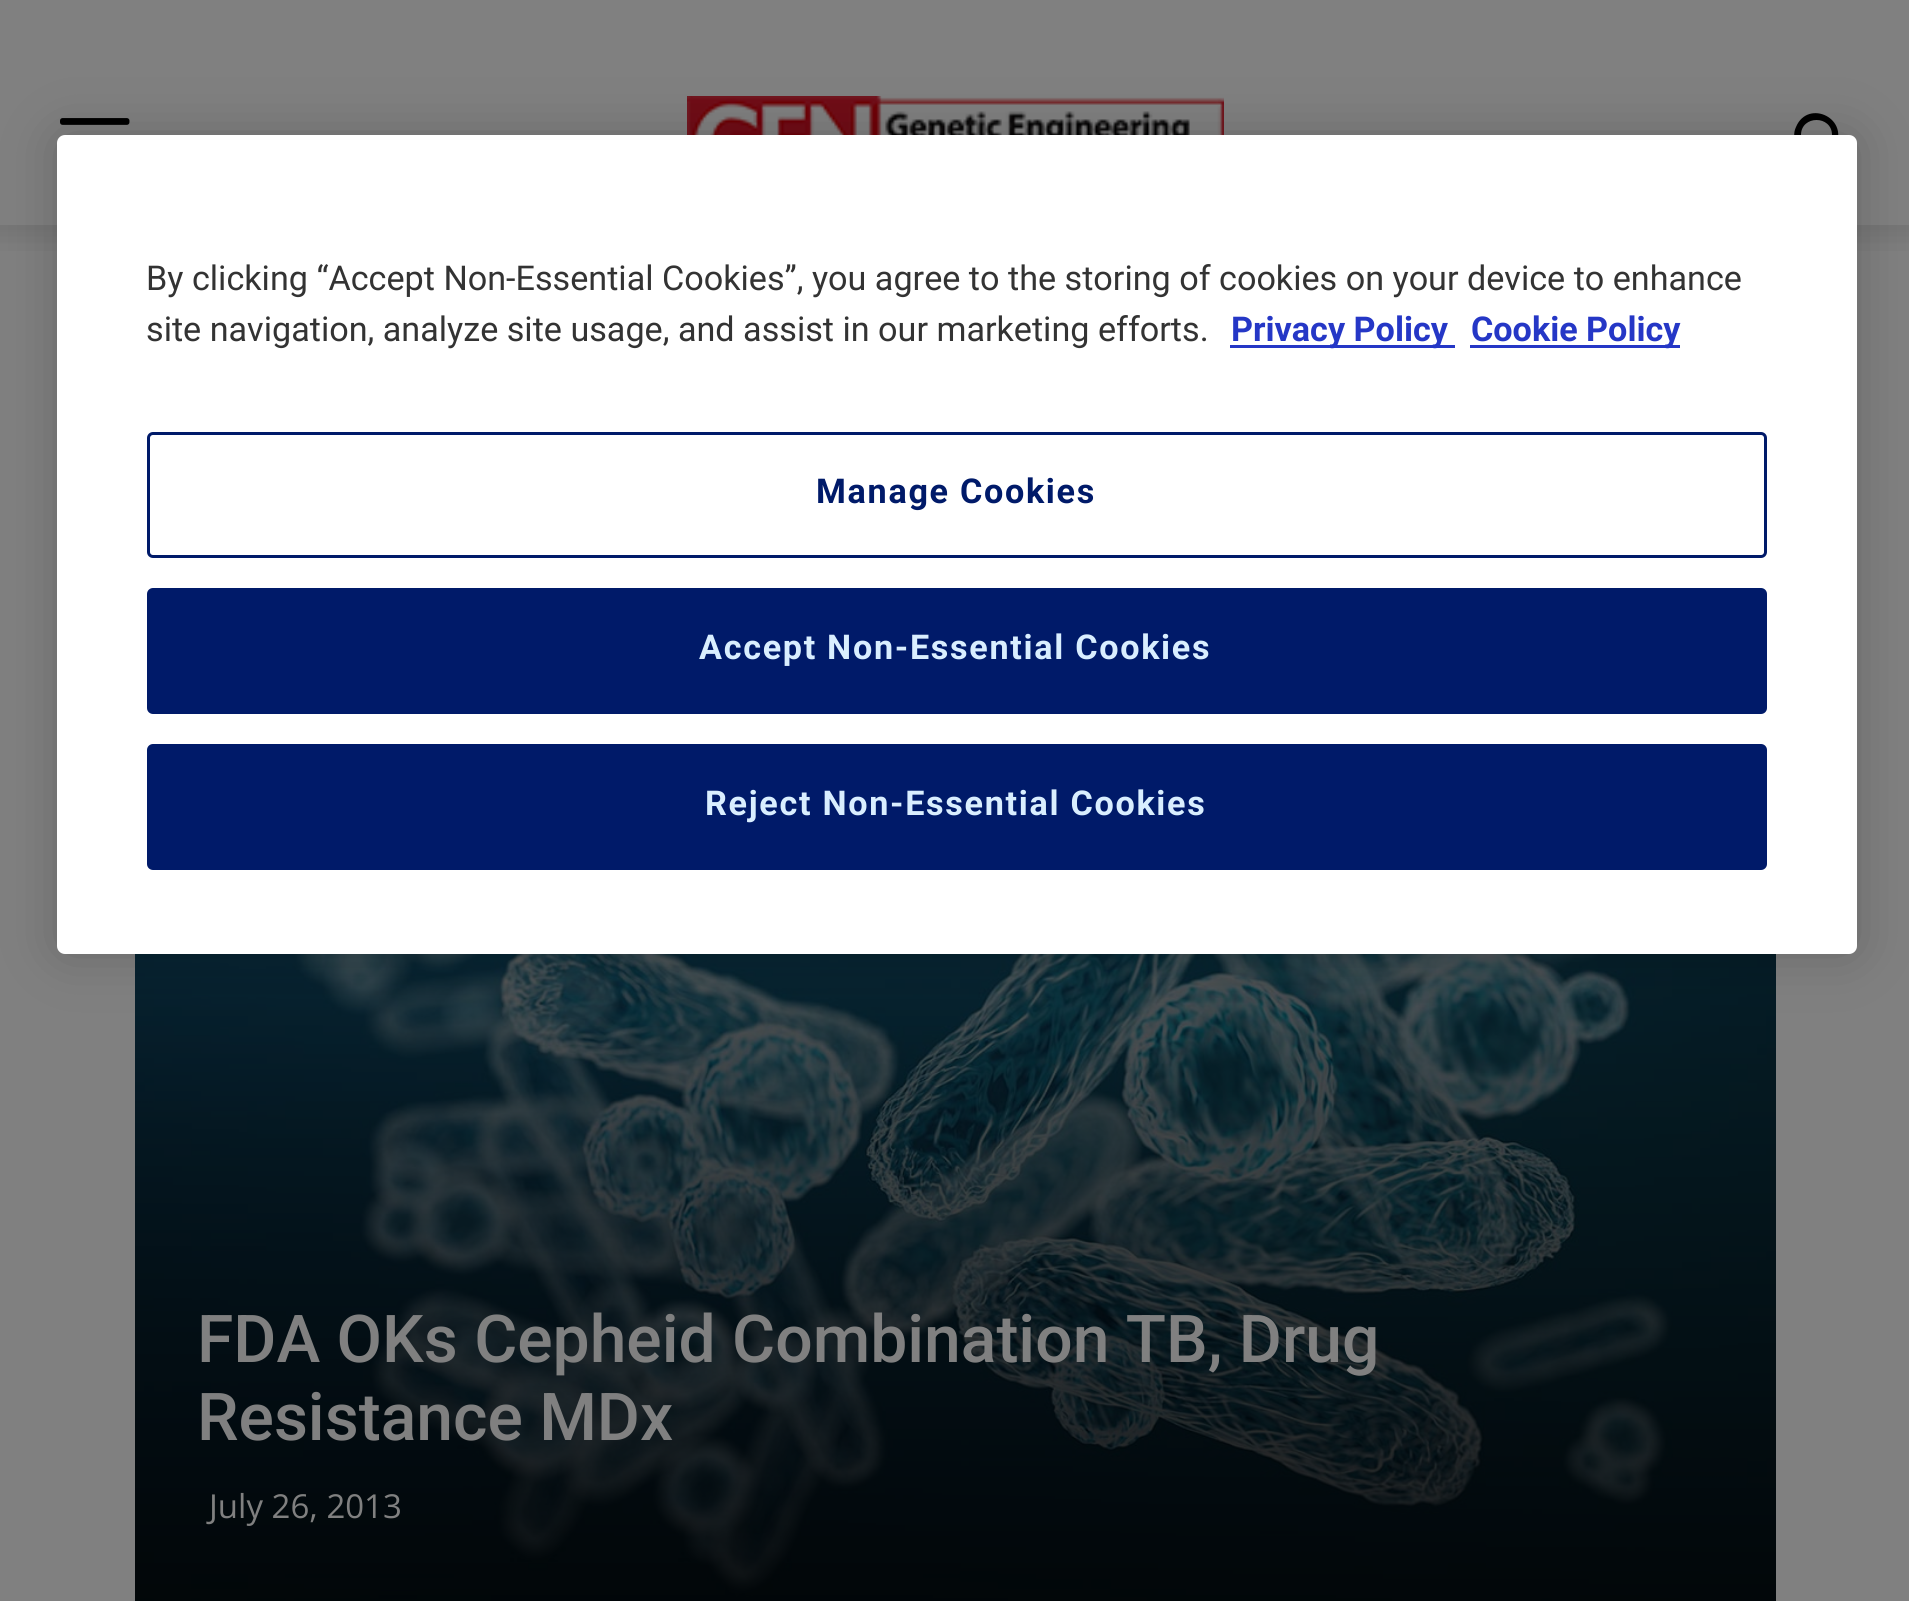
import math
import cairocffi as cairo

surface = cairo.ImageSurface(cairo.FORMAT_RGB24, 1909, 1601)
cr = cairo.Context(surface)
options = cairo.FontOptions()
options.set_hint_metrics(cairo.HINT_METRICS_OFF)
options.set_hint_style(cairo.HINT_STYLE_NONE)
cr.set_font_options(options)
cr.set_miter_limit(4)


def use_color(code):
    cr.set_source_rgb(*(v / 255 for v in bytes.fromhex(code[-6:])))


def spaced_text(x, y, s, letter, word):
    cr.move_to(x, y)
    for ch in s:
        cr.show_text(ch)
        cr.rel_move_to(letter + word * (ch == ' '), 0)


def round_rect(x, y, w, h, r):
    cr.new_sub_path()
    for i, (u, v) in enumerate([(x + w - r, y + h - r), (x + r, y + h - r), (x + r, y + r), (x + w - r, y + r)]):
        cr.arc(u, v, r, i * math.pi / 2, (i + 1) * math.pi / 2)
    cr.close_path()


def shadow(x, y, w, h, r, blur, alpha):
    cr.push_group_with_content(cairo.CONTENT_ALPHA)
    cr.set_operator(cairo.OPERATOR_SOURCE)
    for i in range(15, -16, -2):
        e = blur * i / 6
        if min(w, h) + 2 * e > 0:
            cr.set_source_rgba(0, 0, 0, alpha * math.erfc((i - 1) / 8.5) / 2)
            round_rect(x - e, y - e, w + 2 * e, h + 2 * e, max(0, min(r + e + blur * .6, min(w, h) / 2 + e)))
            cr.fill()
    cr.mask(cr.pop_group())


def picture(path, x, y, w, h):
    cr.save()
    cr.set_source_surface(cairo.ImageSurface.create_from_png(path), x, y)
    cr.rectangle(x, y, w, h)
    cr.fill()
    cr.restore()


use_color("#808080")
cr.paint()
picture("img1.png", 60, 118, 70, 7)
picture("img2.png", 687, 96, 537, 39)
use_color("#000000")
cr.new_path()
cr.move_to(1832, 135)
cr.curve_to(1832, 156, 1801, 156, 1801, 135)
cr.curve_to(1801, 115, 1832, 115, 1832, 135)
cr.close_path()
cr.move_to(1853, 168)
cr.curve_to(1853, 165, 1848, 162, 1846, 160)
cr.line_to(1834, 149)
cr.curve_to(1852, 119, 1808, 98, 1796, 127)
cr.curve_to(1793, 133, 1794, 140, 1797, 146)
cr.curve_to(1803, 158, 1819, 161, 1830, 154)
cr.line_to(1841, 165)
cr.curve_to(1843, 167, 1846, 173, 1850, 172)
cr.curve_to(1851, 172, 1853, 170, 1853, 168)
cr.close_path()
cr.fill()
picture("img3.png", 0, 225, 1909, 26)
picture("img4.png", 135, 954, 1641, 647)
use_color("#000000")
shadow(57, 135, 1800, 819, 8, 27, 0.2)
use_color("#ffffff")
round_rect(57, 135, 1800, 819, 8)
cr.fill()
cr.select_font_face("Roboto")
cr.set_font_size(34.15)
use_color("#333333")
cr.move_to(146, 290)
cr.show_text("By clicking “Accept Non-Essential Cookies”, you agree to the storing of cookies on your device to enhance")
cr.move_to(146, 341)
cr.show_text("site navigation, analyze site usage, and assist in our marketing efforts.")
use_color("#2537c6")
cr.rectangle(1230, 345, 225, 3)
cr.fill()
cr.select_font_face("Roboto", cairo.FONT_SLANT_NORMAL, cairo.FONT_WEIGHT_BOLD)
cr.move_to(1231, 341)
cr.show_text("Privacy Policy")
cr.rectangle(1470, 345, 210, 3)
cr.fill()
cr.move_to(1471, 341)
cr.show_text("Cookie Policy")
round_rect(148.5, 433.5, 1617, 123, 4.5)
use_color("#001a69")
cr.set_line_width(3)
cr.stroke()
spaced_text(816, 503, "Manage Cookies", 1.7, 0)
round_rect(148.5, 589.5, 1617, 123, 4.5)
cr.fill_preserve()
cr.stroke()
use_color("#d9eeff")
spaced_text(699, 659, "Accept Non-Essential Cookies", 1.7, 0)
use_color("#001a69")
round_rect(148.5, 745.5, 1617, 123, 4.5)
cr.fill_preserve()
cr.stroke()
use_color("#d9eeff")
spaced_text(705, 815, "Reject Non-Essential Cookies", 1.7, 0)
cr.select_font_face("Roboto Medium")
cr.set_font_size(66)
use_color("#808080")
cr.move_to(197, 1362)
cr.show_text("FDA OKs Cepheid Combination TB, Drug")
cr.move_to(197, 1440)
cr.show_text("Resistance MDx")
cr.select_font_face("Open Sans")
cr.set_font_size(33)
cr.move_to(209, 1518)
cr.show_text("July 26, 2013")
surface.write_to_png("result.png")
